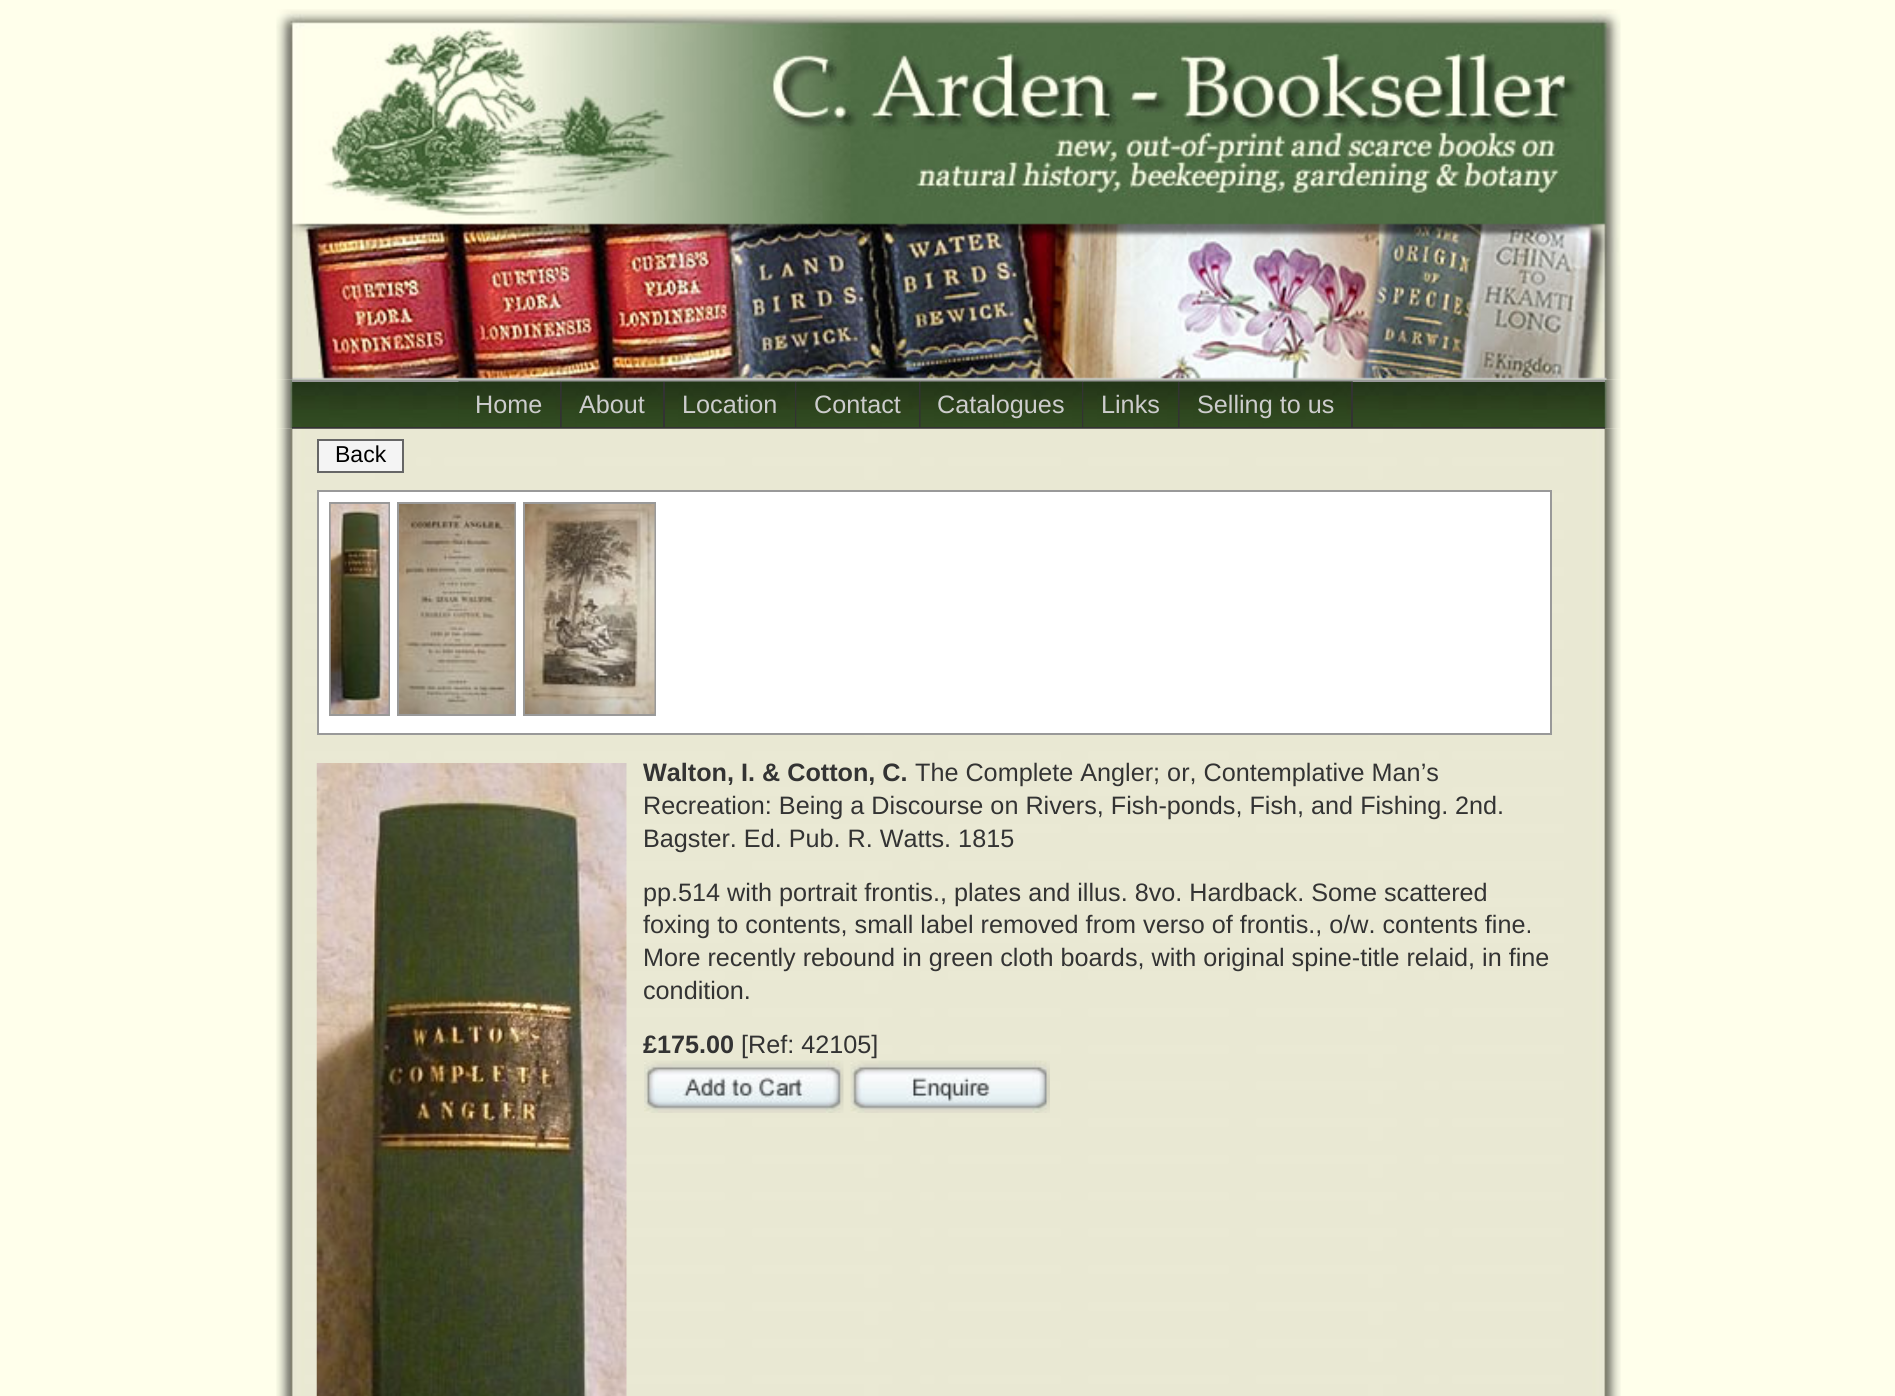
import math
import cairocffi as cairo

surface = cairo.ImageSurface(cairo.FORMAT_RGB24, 1895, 1396)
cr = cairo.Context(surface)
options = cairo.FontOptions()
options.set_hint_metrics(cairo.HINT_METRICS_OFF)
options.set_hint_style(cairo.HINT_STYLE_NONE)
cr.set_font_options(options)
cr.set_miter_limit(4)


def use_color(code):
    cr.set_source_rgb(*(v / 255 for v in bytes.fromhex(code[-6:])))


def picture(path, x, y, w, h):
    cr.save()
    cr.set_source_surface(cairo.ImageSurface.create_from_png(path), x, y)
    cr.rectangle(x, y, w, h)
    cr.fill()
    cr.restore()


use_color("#ffffeb")
cr.paint()
picture("img1.png", 276, 9, 1345, 371)
picture("img2.png", 276, 379, 1345, 50)
picture("img3.png", 292, 382, 1313, 45)
use_color("#999999")
cr.rectangle(292, 380, 1313, 2)
cr.fill()
use_color("#333333")
cr.rectangle(292, 427, 1313, 2)
cr.fill()
picture("img4.png", 458, 381, 104, 46)
cr.rectangle(560, 382, 2, 45)
cr.fill()
cr.select_font_face("Liberation Sans")
cr.set_font_size(25.2)
use_color("#cccccc")
cr.move_to(475, 413)
cr.show_text("Home")
picture("img5.png", 561, 381, 104, 46)
use_color("#333333")
cr.rectangle(663, 382, 2, 45)
cr.fill()
use_color("#cccccc")
cr.move_to(579, 413)
cr.show_text("About")
picture("img6.png", 665, 381, 132, 46)
use_color("#333333")
cr.rectangle(795, 382, 2, 45)
cr.fill()
use_color("#cccccc")
cr.move_to(682, 413)
cr.show_text("Location")
picture("img7.png", 796, 381, 125, 46)
use_color("#333333")
cr.rectangle(919, 382, 2, 45)
cr.fill()
use_color("#cccccc")
cr.move_to(814, 413)
cr.show_text("Contact")
picture("img8.png", 920, 381, 164, 46)
use_color("#333333")
cr.rectangle(1082, 382, 2, 45)
cr.fill()
use_color("#cccccc")
cr.move_to(937, 413)
cr.show_text("Catalogues")
picture("img9.png", 1083, 381, 97, 46)
use_color("#333333")
cr.rectangle(1178, 382, 2, 45)
cr.fill()
use_color("#cccccc")
cr.move_to(1101, 413)
cr.show_text("Links")
picture("img10.png", 1179, 381, 174, 46)
use_color("#333333")
cr.rectangle(1351, 382, 2, 45)
cr.fill()
use_color("#cccccc")
cr.move_to(1197, 413)
cr.show_text("Selling to us")
picture("img11.png", 276, 428, 1345, 968)
use_color("#f4f4f4")
cr.rectangle(318, 440, 85, 32)
cr.fill_preserve()
use_color("#666666")
cr.stroke()
cr.set_font_size(23)
use_color("#000000")
cr.move_to(335, 462)
cr.show_text("Back")
use_color("#ffffff")
cr.rectangle(318, 491, 1233, 243)
cr.fill_preserve()
use_color("#999999")
cr.stroke()
cr.rectangle(330, 503, 59, 212)
cr.stroke()
cr.rectangle(398, 503, 117, 212)
cr.stroke()
cr.rectangle(524, 503, 131, 212)
cr.stroke()
picture("img12.png", 330, 504, 59, 210)
picture("img13.png", 399, 504, 116, 210)
picture("img14.png", 525, 504, 130, 210)
picture("img15.png", 316, 763, 311, 633)
cr.select_font_face("Liberation Sans", cairo.FONT_SLANT_NORMAL, cairo.FONT_WEIGHT_BOLD)
cr.set_font_size(25.2)
use_color("#333333")
cr.move_to(643, 781)
cr.show_text("Walton, I. & Cotton, C.")
cr.select_font_face("Liberation Sans")
cr.move_to(915, 781)
cr.show_text("The Complete Angler; or, Contemplative Man’s")
cr.move_to(643, 814)
cr.show_text("Recreation: Being a Discourse on Rivers, Fish-ponds, Fish, and Fishing.")
cr.move_to(1455, 814)
cr.show_text("2nd.")
cr.move_to(643, 847)
cr.show_text("Bagster. Ed. Pub. R. Watts. 1815")
cr.move_to(643, 901)
cr.show_text("pp.514 with portrait frontis., plates and illus. 8vo. Hardback. Some scattered")
cr.move_to(643, 933)
cr.show_text("foxing to contents, small label removed from verso of frontis., o/w. contents fine.")
cr.move_to(643, 966)
cr.show_text("More recently rebound in green cloth boards, with original spine-title relaid, in fine")
cr.move_to(643, 999)
cr.show_text("condition.")
cr.select_font_face("Liberation Sans", cairo.FONT_SLANT_NORMAL, cairo.FONT_WEIGHT_BOLD)
cr.move_to(643, 1053)
cr.show_text("£175.00")
cr.select_font_face("Liberation Sans")
cr.move_to(741, 1053)
cr.show_text("[Ref: 42105]")
picture("img16.png", 644, 1060, 200, 53)
picture("img17.png", 850, 1060, 200, 53)
surface.write_to_png("result.png")
